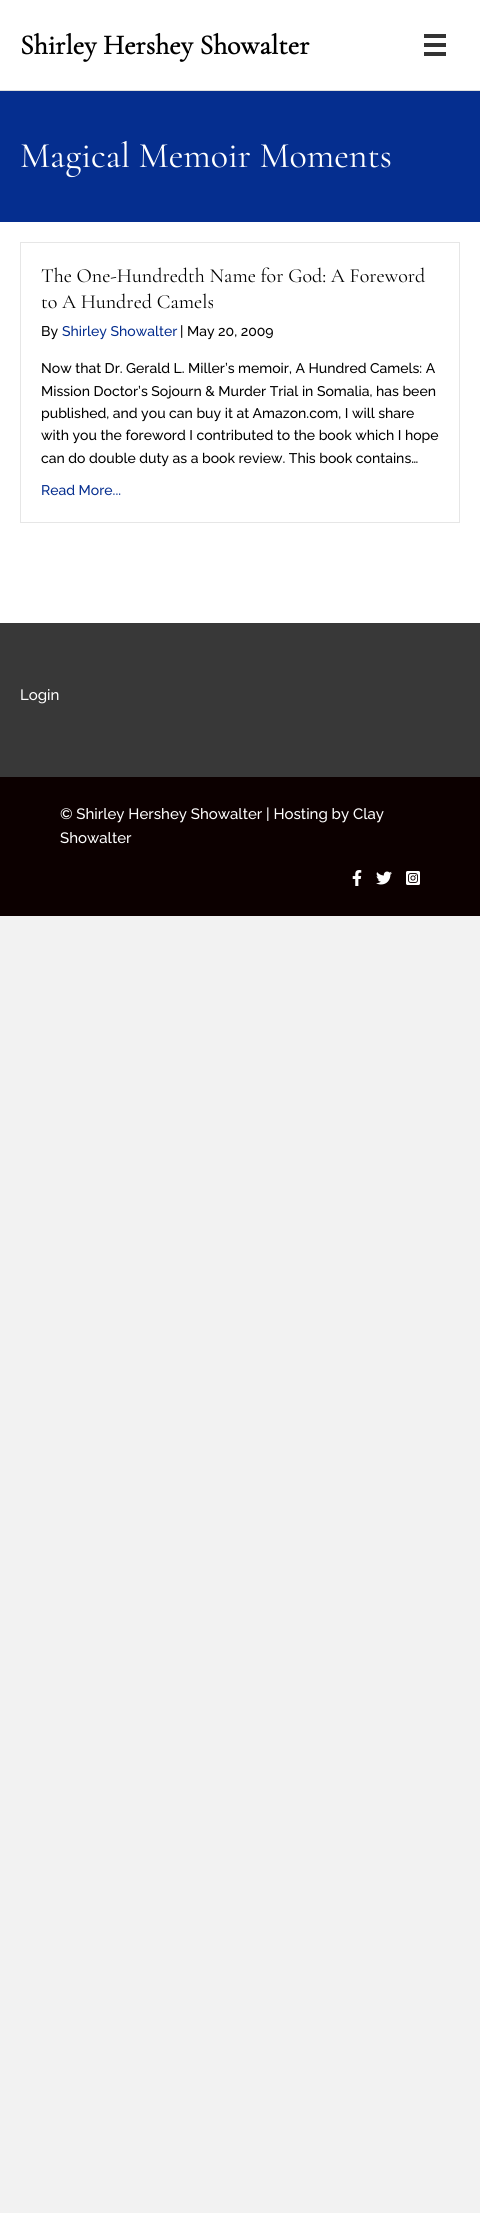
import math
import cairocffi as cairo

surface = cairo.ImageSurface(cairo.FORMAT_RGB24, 480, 2213)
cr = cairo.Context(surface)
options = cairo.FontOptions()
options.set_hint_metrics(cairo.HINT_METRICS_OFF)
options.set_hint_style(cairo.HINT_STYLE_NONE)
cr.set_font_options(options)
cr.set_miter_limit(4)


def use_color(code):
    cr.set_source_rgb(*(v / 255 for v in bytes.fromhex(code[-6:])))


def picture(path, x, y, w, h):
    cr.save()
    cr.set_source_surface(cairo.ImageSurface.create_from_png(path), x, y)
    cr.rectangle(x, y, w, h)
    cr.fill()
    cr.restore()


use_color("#f2f2f2")
cr.paint()
use_color("#ffffff")
cr.rectangle(0, 0, 480, 90)
cr.fill()
use_color("#dddddd")
cr.rectangle(0, 90, 480, 1)
cr.fill()
cr.select_font_face("Cormorant Garamond", cairo.FONT_SLANT_NORMAL, cairo.FONT_WEIGHT_BOLD)
cr.set_font_size(28)
use_color("#000000")
cr.move_to(20, 54)
cr.show_text("Shirley Hershey Showalter")
use_color("#333333")
cr.rectangle(424, 34, 22, 4)
cr.fill()
cr.rectangle(424, 43, 22, 4)
cr.fill()
cr.rectangle(424, 52, 22, 4)
cr.fill()
use_color("#ffffff")
cr.rectangle(0, 222, 480, 401)
cr.fill()
use_color("#052e8f")
cr.rectangle(0, 91, 480, 131)
cr.fill()
cr.select_font_face("Cormorant Garamond Light")
cr.set_font_size(36)
use_color("#ffffff")
cr.move_to(20, 167)
cr.show_text("Magical Memoir Moments")
cr.rectangle(20.5, 242.5, 439, 280)
use_color("#e6e6e6")
cr.set_line_width(1)
cr.stroke()
cr.set_font_size(20)
use_color("#000000")
cr.move_to(41, 282)
cr.show_text("The One-Hundredth Name for God: A Foreword")
cr.move_to(41, 308)
cr.show_text("to A Hundred Camels")
cr.select_font_face("Raleway Medium")
cr.set_font_size(14)
cr.move_to(41, 336)
cr.show_text("By")
use_color("#052e8f")
cr.move_to(62, 336)
cr.show_text("Shirley Showalter")
use_color("#000000")
cr.move_to(180, 336)
cr.show_text("| May 20, 2009")
cr.move_to(41, 373)
cr.show_text("Now that Dr. Gerald L. Miller’s memoir, A Hundred Camels: A")
cr.move_to(41, 396)
cr.show_text("Mission Doctor’s Sojourn & Murder Trial in Somalia, has been")
cr.move_to(41, 418)
cr.show_text("published, and you can buy it at Amazon.com, I will share")
cr.move_to(41, 440)
cr.show_text("with you the foreword I contributed to the book which I hope")
cr.move_to(41, 463)
cr.show_text("can do double duty as a book review. This book contains…")
use_color("#052e8f")
cr.move_to(41, 495)
cr.show_text("Read More...")
use_color("#383838")
cr.rectangle(0, 623, 480, 154)
cr.fill()
cr.set_font_size(15)
use_color("#ffffff")
cr.move_to(20, 700)
cr.show_text("Login")
use_color("#0c0000")
cr.rectangle(0, 777, 480, 139)
cr.fill()
use_color("#ffffff")
cr.move_to(60, 819)
cr.show_text("© Shirley Hershey Showalter | Hosting by Clay")
cr.move_to(60, 843)
cr.show_text("Showalter")
picture("img1.png", 352, 870, 10, 16)
picture("img2.png", 376, 871, 16, 14)
picture("img3.png", 406, 871, 14, 14)
surface.write_to_png("result.png")
